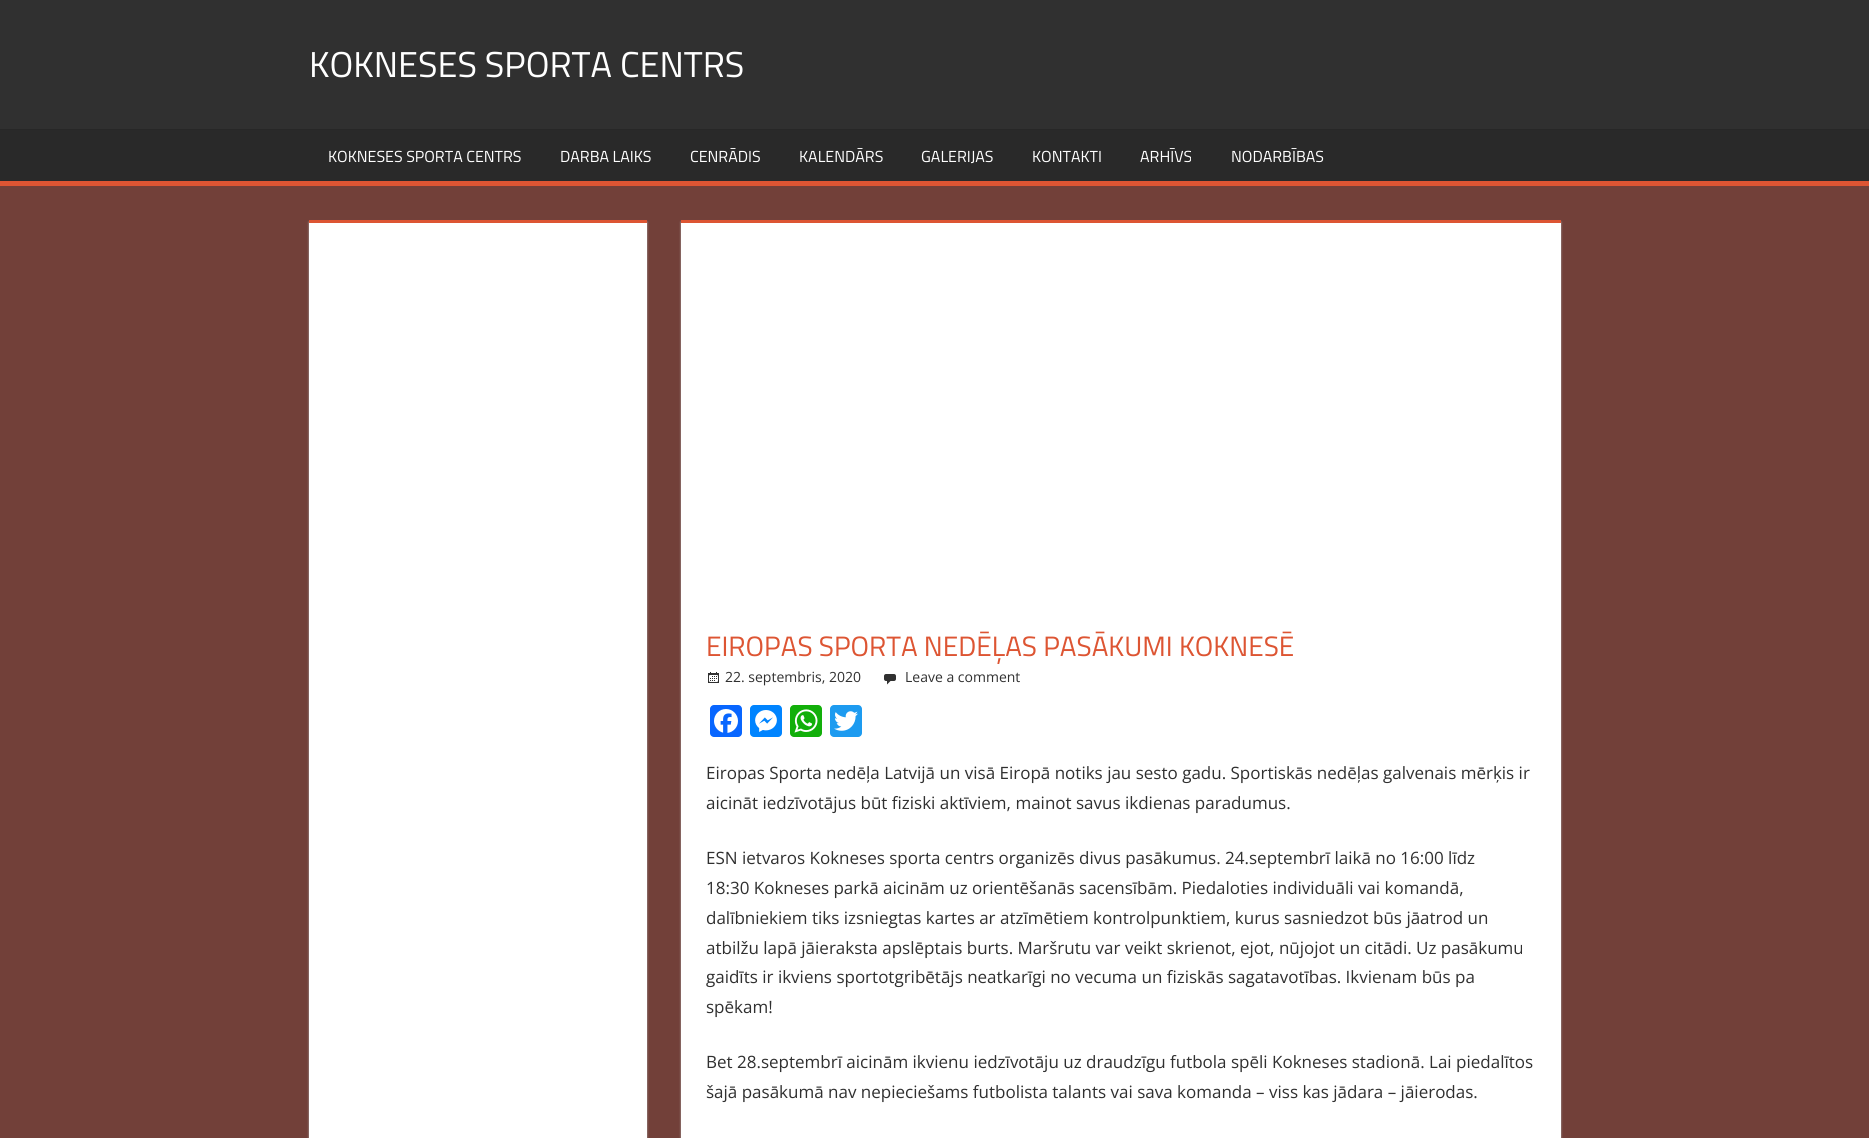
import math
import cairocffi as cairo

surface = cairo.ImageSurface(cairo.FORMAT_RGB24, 1869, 1138)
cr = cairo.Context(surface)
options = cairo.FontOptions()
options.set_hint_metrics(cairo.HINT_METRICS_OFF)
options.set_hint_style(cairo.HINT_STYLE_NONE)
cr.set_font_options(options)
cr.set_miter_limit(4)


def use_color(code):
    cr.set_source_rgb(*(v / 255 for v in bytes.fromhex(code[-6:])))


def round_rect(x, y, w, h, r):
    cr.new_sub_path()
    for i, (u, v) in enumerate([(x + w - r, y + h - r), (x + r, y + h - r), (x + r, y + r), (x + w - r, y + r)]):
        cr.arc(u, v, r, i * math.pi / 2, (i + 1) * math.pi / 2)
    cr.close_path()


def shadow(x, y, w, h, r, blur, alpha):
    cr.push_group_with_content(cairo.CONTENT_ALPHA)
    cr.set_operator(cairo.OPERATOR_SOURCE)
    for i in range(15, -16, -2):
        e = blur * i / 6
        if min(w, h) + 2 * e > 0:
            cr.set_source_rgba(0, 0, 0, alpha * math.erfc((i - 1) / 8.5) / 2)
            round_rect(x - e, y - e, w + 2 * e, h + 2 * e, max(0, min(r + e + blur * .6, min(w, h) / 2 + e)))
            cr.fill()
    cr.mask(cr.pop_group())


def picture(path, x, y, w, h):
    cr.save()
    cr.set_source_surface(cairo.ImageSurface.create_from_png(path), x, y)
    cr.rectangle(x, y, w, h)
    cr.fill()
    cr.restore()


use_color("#724039")
cr.paint()
use_color("#303030")
cr.rectangle(0, 0, 1869, 129)
cr.fill()
cr.select_font_face("Titillium Web")
cr.set_font_size(36)
use_color("#ffffff")
cr.move_to(309, 77)
cr.show_text("KOKNESES SPORTA CENTRS")
use_color("#292929")
cr.rectangle(0, 130, 1869, 51)
cr.fill()
use_color("#272727")
cr.rectangle(0, 129, 1869, 1)
cr.fill()
use_color("#dd5533")
cr.rectangle(0, 181, 1869, 5)
cr.fill()
cr.set_font_size(16)
use_color("#ffffff")
cr.move_to(328, 162)
cr.show_text("KOKNESES SPORTA CENTRS")
cr.move_to(560, 162)
cr.show_text("DARBA LAIKS")
cr.move_to(690, 162)
cr.show_text("CENRĀDIS")
cr.move_to(799, 162)
cr.show_text("KALENDĀRS")
cr.move_to(921, 162)
cr.show_text("GALERIJAS")
cr.move_to(1032, 162)
cr.show_text("KONTAKTI")
cr.move_to(1140, 162)
cr.show_text("ARHĪVS")
cr.move_to(1231, 162)
cr.show_text("NODARBĪBAS")
use_color("#aaaaaa")
shadow(309, 222, 338, 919, 0, 1, 1)
use_color("#ffffff")
cr.rectangle(309, 223, 338, 915)
cr.fill()
use_color("#dd5533")
cr.rectangle(309, 220, 338, 3)
cr.fill()
use_color("#aaaaaa")
shadow(681, 222, 880, 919, 0, 1, 1)
use_color("#ffffff")
cr.rectangle(681, 223, 880, 915)
cr.fill()
use_color("#dd5533")
cr.rectangle(681, 220, 880, 3)
cr.fill()
cr.set_font_size(28)
cr.move_to(706, 656)
cr.show_text("EIROPAS SPORTA NEDĒĻAS PASĀKUMI KOKNESĒ")
picture("img1.png", 708, 672, 11, 11)
cr.select_font_face("Open Sans")
cr.set_font_size(14)
use_color("#303030")
cr.move_to(725, 682)
cr.show_text("22. septembris, 2020")
picture("img2.png", 884, 674, 12, 11)
cr.move_to(905, 682)
cr.show_text("Leave a comment")
use_color("#0866ff")
round_rect(710, 705, 32, 32, 4)
cr.fill()
picture("img3.png", 714, 709, 24, 24)
use_color("#0084ff")
round_rect(750, 705, 32, 32, 4)
cr.fill()
picture("img4.png", 755, 710, 22, 22)
use_color("#12af0a")
round_rect(790, 705, 32, 32, 4)
cr.fill()
picture("img5.png", 794, 709, 24, 24)
use_color("#1d9bf0")
round_rect(830, 705, 32, 32, 4)
cr.fill()
picture("img6.png", 834, 711, 24, 20)
cr.set_font_size(17)
use_color("#303030")
cr.move_to(706, 779)
cr.show_text("Eiropas Sporta nedēļa Latvijā un visā Eiropā notiks jau sesto gadu. Sportiskās nedēļas galvenais mērķis ir")
cr.move_to(706, 809)
cr.show_text("aicināt iedzīvotājus būt fiziski aktīviem, mainot savus ikdienas paradumus.")
cr.move_to(706, 864)
cr.show_text("ESN ietvaros Kokneses sporta centrs organizēs divus pasākumus. 24.septembrī laikā no 16:00 līdz")
cr.move_to(706, 894)
cr.show_text("18:30 Kokneses parkā aicinām uz orientēšanās sacensībām. Piedaloties individuāli vai komandā,")
cr.move_to(706, 924)
cr.show_text("dalībniekiem tiks izsniegtas kartes ar atzīmētiem kontrolpunktiem, kurus sasniedzot būs jāatrod un")
cr.move_to(706, 954)
cr.show_text("atbilžu lapā jāieraksta apslēptais burts. Maršrutu var veikt skrienot, ejot, nūjojot un citādi. Uz pasākumu")
cr.move_to(706, 983)
cr.show_text("gaidīts ir ikviens sportotgribētājs neatkarīgi no vecuma un fiziskās sagatavotības. Ikvienam būs pa")
cr.move_to(706, 1013)
cr.show_text("spēkam!")
cr.move_to(706, 1068)
cr.show_text("Bet 28.septembrī aicinām ikvienu iedzīvotāju uz draudzīgu futbola spēli Kokneses stadionā. Lai piedalītos")
cr.move_to(706, 1098)
cr.show_text("šajā pasākumā nav nepieciešams futbolista talants vai sava komanda – viss kas jādara – jāierodas.")
surface.write_to_png("result.png")
